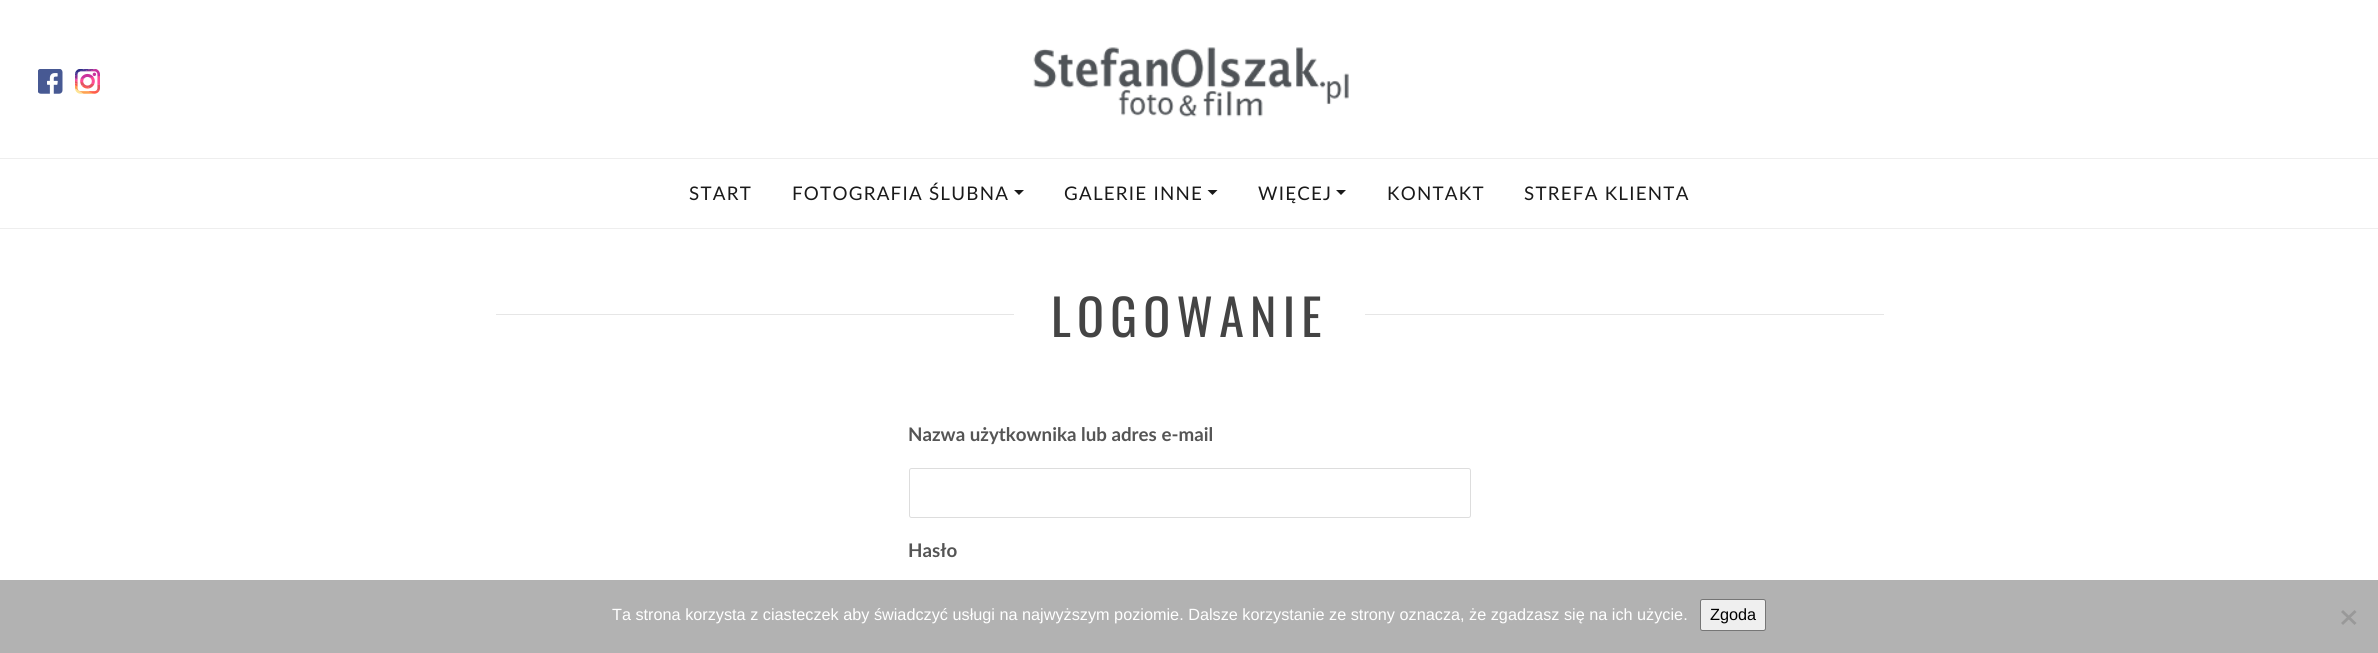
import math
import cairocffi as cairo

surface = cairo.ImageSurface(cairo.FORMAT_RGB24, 2378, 653)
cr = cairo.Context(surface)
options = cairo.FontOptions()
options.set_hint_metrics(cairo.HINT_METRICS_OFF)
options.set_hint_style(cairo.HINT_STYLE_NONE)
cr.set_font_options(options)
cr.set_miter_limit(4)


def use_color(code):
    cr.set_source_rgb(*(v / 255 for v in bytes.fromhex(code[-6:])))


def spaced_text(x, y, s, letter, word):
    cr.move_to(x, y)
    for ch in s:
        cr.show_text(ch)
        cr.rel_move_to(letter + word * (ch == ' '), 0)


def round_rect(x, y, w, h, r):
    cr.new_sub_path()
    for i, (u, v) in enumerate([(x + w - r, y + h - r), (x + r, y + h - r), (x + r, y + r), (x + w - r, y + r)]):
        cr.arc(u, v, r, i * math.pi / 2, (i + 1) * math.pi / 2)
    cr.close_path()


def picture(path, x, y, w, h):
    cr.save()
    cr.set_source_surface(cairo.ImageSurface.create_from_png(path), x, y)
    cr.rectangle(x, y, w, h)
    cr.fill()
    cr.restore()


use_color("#ffffff")
cr.paint()
picture("img1.png", 38, 69, 25, 25)
picture("img2.png", 75, 69, 25, 25)
picture("img3.png", 1033, 47, 316, 70)
use_color("#eeeeee")
cr.rectangle(0, 158, 2378, 1)
cr.fill()
cr.rectangle(0, 228, 2378, 1)
cr.fill()
cr.select_font_face("Lato")
cr.set_font_size(18.75)
use_color("#1a1a1a")
spaced_text(689, 200, "START", 1.25, 0)
spaced_text(792, 200, "FOTOGRAFIA ŚLUBNA", 1.25, 0)
cr.new_path()
cr.move_to(1014, 190)
cr.line_to(1024, 190)
cr.line_to(1019, 195)
cr.close_path()
cr.fill()
spaced_text(1064, 200, "GALERIE INNE", 1.25, 0)
cr.new_path()
cr.move_to(1207.5, 190)
cr.line_to(1217.5, 190)
cr.line_to(1212.5, 195)
cr.close_path()
cr.fill()
spaced_text(1258, 200, "WIĘCEJ", 1.25, 0)
cr.new_path()
cr.move_to(1336, 190)
cr.line_to(1346, 190)
cr.line_to(1341, 195)
cr.close_path()
cr.fill()
spaced_text(1387, 200, "KONTAKT", 1.25, 0)
spaced_text(1524, 200, "STREFA KLIENTA", 1.25, 0)
use_color("#e6e6e6")
cr.rectangle(496, 314, 1388, 1)
cr.fill()
use_color("#ffffff")
cr.rectangle(1014, 314, 351, 1)
cr.fill()
cr.select_font_face("Oswald")
cr.set_font_size(50)
use_color("#444444")
spaced_text(1051, 337, "LOGOWANIE", 6.25, 0)
cr.select_font_face("Lato", cairo.FONT_SLANT_NORMAL, cairo.FONT_WEIGHT_BOLD)
cr.set_font_size(18.75)
use_color("#555555")
cr.move_to(908, 441)
cr.show_text("Nazwa użytkownika lub adres e-mail")
round_rect(909.5, 468.5, 561, 49, 2)
use_color("#dddddd")
cr.set_line_width(1)
cr.stroke()
use_color("#555555")
cr.move_to(908, 557)
cr.show_text("Hasło")
use_color("#b2b2b2")
cr.rectangle(0, 580, 2378, 73)
cr.fill()
cr.select_font_face("Liberation Sans")
cr.set_font_size(16.25)
use_color("#ffffff")
cr.move_to(612, 620)
cr.show_text("Ta strona korzysta z ciasteczek aby świadczyć usługi na najwyższym poziomie. Dalsze korzystanie ze strony oznacza, że zgadzasz się na ich użycie.")
use_color("#efefef")
round_rect(1700.5, 599.5, 65, 31, 2)
cr.fill_preserve()
use_color("#767676")
cr.stroke()
use_color("#000000")
cr.move_to(1710, 620)
cr.show_text("Zgoda")
use_color("#999999")
cr.new_path()
cr.move_to(2354.5, 610)
cr.line_to(2356.5, 612)
cr.line_to(2343, 625)
cr.line_to(2341, 623)
cr.close_path()
cr.fill()
cr.new_path()
cr.move_to(2341, 612)
cr.line_to(2343, 610)
cr.line_to(2356.5, 623)
cr.line_to(2354.5, 625)
cr.close_path()
cr.fill()
surface.write_to_png("result.png")
